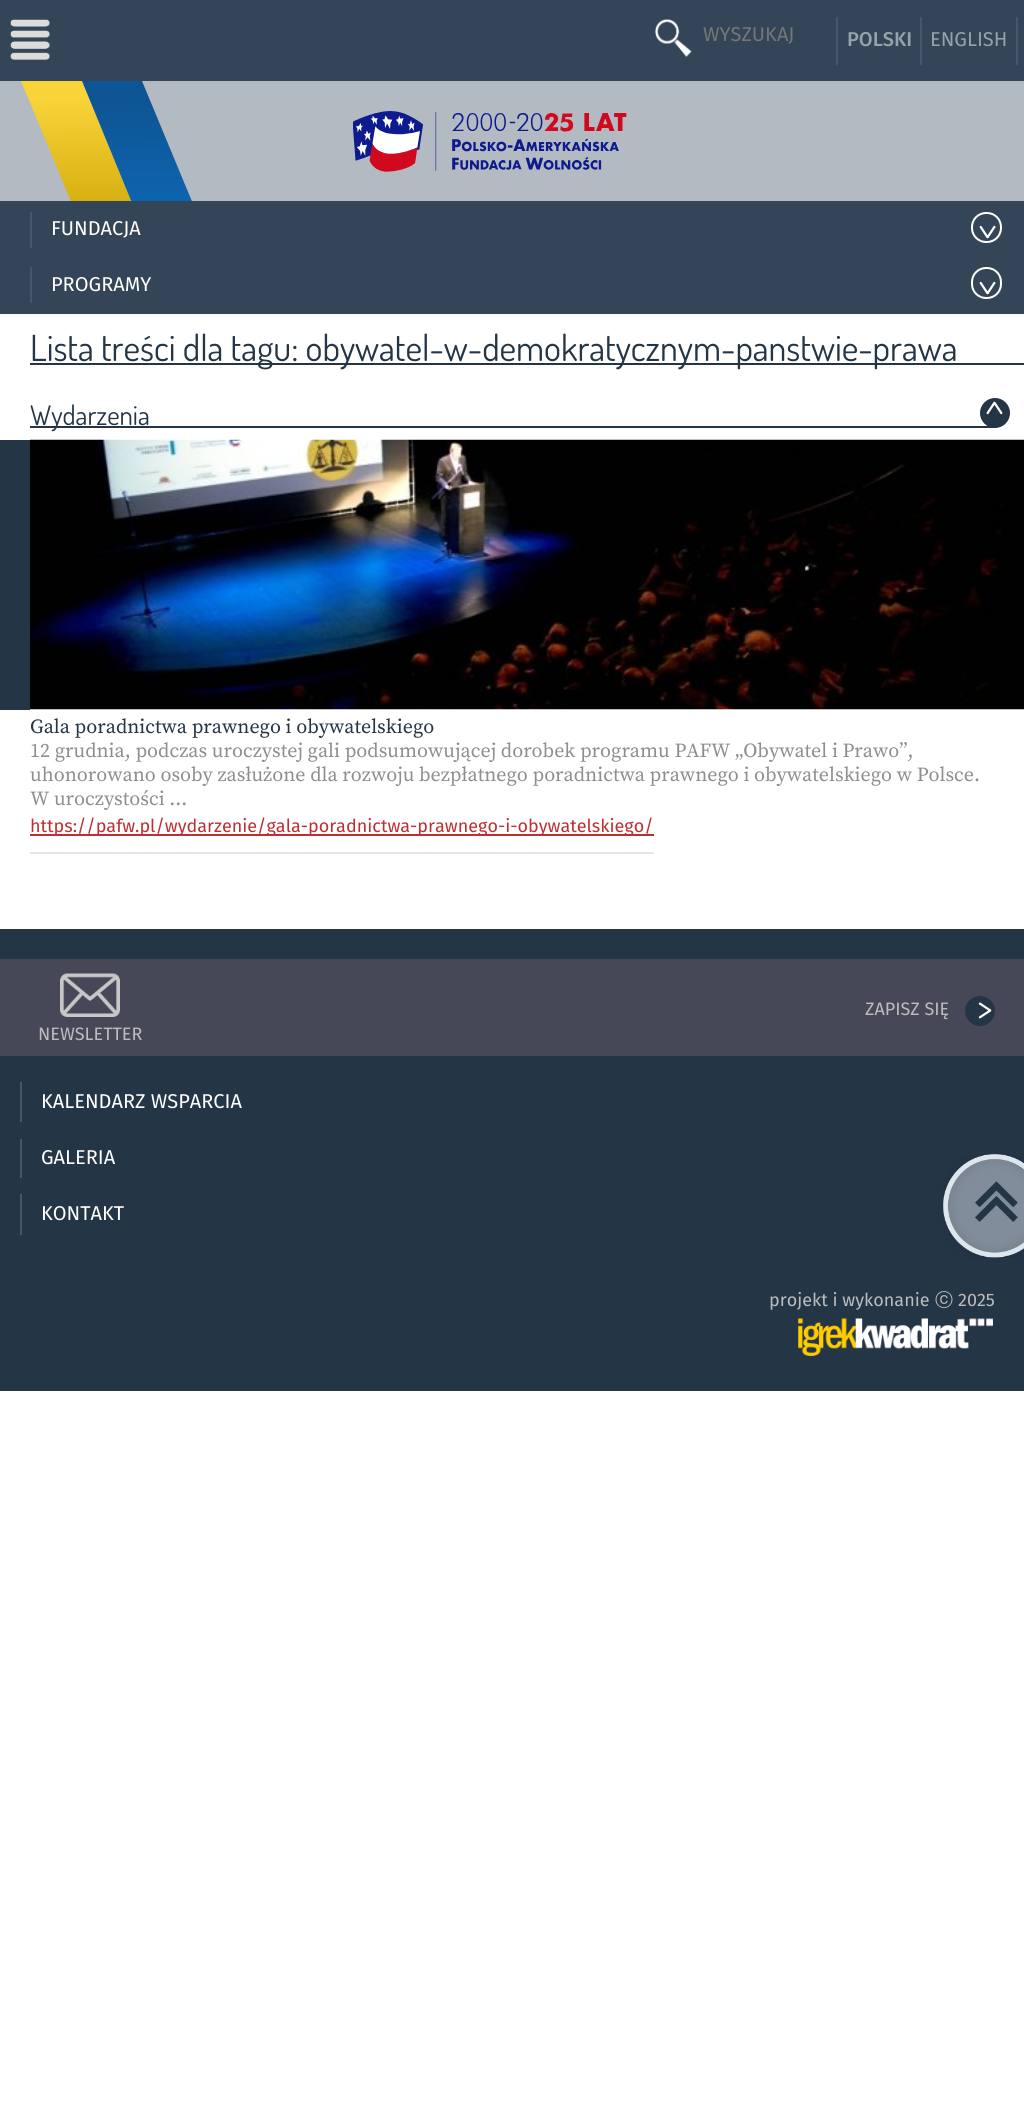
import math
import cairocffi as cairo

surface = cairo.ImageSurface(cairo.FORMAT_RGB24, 1024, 2113)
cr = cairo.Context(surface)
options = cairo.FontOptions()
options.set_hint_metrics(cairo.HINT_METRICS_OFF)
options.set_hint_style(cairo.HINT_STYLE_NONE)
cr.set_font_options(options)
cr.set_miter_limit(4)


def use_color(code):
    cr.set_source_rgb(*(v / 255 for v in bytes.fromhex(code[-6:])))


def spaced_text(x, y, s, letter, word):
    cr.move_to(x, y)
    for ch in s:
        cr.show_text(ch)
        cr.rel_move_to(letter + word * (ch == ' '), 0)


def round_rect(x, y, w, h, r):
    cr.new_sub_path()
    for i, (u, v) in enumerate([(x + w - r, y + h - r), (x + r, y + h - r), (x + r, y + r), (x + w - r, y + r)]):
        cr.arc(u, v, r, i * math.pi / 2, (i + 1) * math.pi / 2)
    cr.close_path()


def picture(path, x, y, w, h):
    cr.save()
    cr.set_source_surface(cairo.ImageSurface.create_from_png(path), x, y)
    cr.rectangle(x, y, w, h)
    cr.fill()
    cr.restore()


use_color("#ffffff")
cr.paint()
use_color("#344557")
cr.rectangle(0, 0, 1024, 81)
cr.fill()
picture("img1.png", 10, 19, 40, 41)
picture("img2.png", 655, 19, 37, 38)
cr.select_font_face("Fira Sans")
cr.set_font_size(20)
use_color("#757575")
cr.move_to(703, 41)
cr.show_text("WYSZUKAJ")
use_color("#455868")
cr.rectangle(920, 17, 2, 48)
cr.fill()
cr.rectangle(836, 17, 2, 48)
cr.fill()
cr.select_font_face("Fira Sans Medium")
use_color("#98a2ab")
cr.move_to(847, 46)
cr.show_text("POLSKI")
use_color("#455868")
cr.rectangle(1016, 17, 2, 48)
cr.fill()
cr.select_font_face("Fira Sans")
use_color("#98a2ab")
cr.move_to(930, 46)
cr.show_text("ENGLISH")
use_color("#b3bac1")
cr.rectangle(0, 81, 1024, 120)
cr.fill()
cr.save()
cr.rectangle(21, 81, 204, 120)
cr.clip()
gradient = cairo.LinearGradient(56, 98, 57, 227)
gradient.add_color_stop_rgba(0, 0.976, 0.831, 0.224, 1)
gradient.add_color_stop_rgba(1, 0.812, 0.659, 0.027, 1)
cr.set_source(gradient)
cr.new_path()
cr.move_to(21, 81)
cr.line_to(82, 81)
cr.line_to(164, 281)
cr.line_to(104, 281)
cr.close_path()
cr.fill()
gradient = cairo.LinearGradient(177, 247, 179, 104)
gradient.add_color_stop_rgba(0, 0.051, 0.42, 0.729, 1)
gradient.add_color_stop_rgba(1, 0.055, 0.333, 0.584, 1)
cr.set_source(gradient)
cr.new_path()
cr.move_to(82, 81)
cr.line_to(142, 81)
cr.line_to(225, 281)
cr.line_to(164, 281)
cr.close_path()
cr.fill()
cr.restore()
picture("img3.png", 353, 111, 274, 61)
use_color("#344557")
cr.rectangle(0, 201, 1024, 113)
cr.fill()
use_color("#ffffff")
cr.move_to(51, 235)
cr.show_text("FUNDACJA")
use_color("#455868")
cr.rectangle(30, 212, 2, 36)
cr.fill()
round_rect(972, 213, 29, 29, 14)
use_color("#ffffff")
cr.stroke()
cr.select_font_face("Dosis")
cr.set_font_size(38)
cr.save()
cr.translate(977, 224)
cr.rotate(90 * math.pi / 180)
spaced_text(0, 0, ">", -8, 0)
cr.restore()
cr.select_font_face("Fira Sans")
cr.set_font_size(20)
cr.move_to(51, 291)
cr.show_text("PROGRAMY")
use_color("#455868")
cr.rectangle(30, 267, 2, 36)
cr.fill()
round_rect(972, 268, 29, 30, 14)
use_color("#ffffff")
cr.stroke()
cr.select_font_face("Dosis")
cr.set_font_size(38)
cr.save()
cr.translate(977, 280)
cr.rotate(90 * math.pi / 180)
spaced_text(0, 0, ">", -8, 0)
cr.restore()
cr.set_font_size(36)
use_color("#243546")
cr.move_to(30, 361)
cr.show_text("Lista treści dla tagu: obywatel-w-demokratycznym-panstwie-prawa")
cr.rectangle(30, 363, 994, 2)
cr.fill()
cr.set_font_size(27)
cr.move_to(30, 425)
cr.show_text("Wydarzenia")
cr.rectangle(30, 426, 965, 2)
cr.fill()
cr.arc(995, 413, 15, 0, 2 * math.pi)
cr.fill()
cr.set_font_size(38)
use_color("#ffffff")
cr.save()
cr.translate(1005, 416)
cr.rotate(-90 * math.pi / 180)
spaced_text(0, 0, ">", -8, 0)
cr.restore()
use_color("#243546")
cr.rectangle(0, 440, 30, 270)
cr.fill()
picture("img4.png", 30, 439, 994, 271)
cr.select_font_face("Source Serif Pro")
cr.set_font_size(20)
cr.move_to(30, 733)
cr.show_text("Gala poradnictwa prawnego i obywatelskiego")
use_color("#8e8e8e")
cr.move_to(30, 757)
cr.show_text("12 grudnia, podczas uroczystej gali podsumowującej dorobek programu PAFW „Obywatel i Prawo”,")
cr.move_to(30, 781)
cr.show_text("uhonorowano osoby zasłużone dla rozwoju bezpłatnego poradnictwa prawnego i obywatelskiego w Polsce.")
cr.move_to(30, 805)
cr.show_text("W uroczystości ...")
use_color("#e0e7ef")
cr.rectangle(30, 852, 624, 2)
cr.fill()
use_color("#be2f33")
cr.rectangle(30, 834, 624, 2)
cr.fill()
cr.select_font_face("Fira Sans")
cr.set_font_size(18)
cr.move_to(30, 832)
cr.show_text("https://pafw.pl/wydarzenie/gala-poradnictwa-prawnego-i-obywatelskiego/")
use_color("#243546")
cr.rectangle(0, 929, 1024, 462)
cr.fill()
use_color("#464857")
cr.rectangle(0, 959, 1024, 97)
cr.fill()
use_color("#bcbcbc")
cr.move_to(865, 1015)
cr.show_text("ZAPISZ SIĘ")
use_color("#243546")
cr.new_path()
cr.arc(980, 1011, 15, 0, 2 * math.pi)
cr.fill()
cr.select_font_face("Dosis")
cr.set_font_size(38)
use_color("#ffffff")
spaced_text(977, 1021, ">", -8, 0)
picture("img5.png", 60, 973, 60, 44)
cr.select_font_face("Fira Sans")
cr.set_font_size(18)
use_color("#bcbcbc")
cr.move_to(38, 1040)
cr.show_text("NEWSLETTER")
cr.set_font_size(20)
use_color("#ffffff")
cr.move_to(41, 1108)
cr.show_text("KALENDARZ WSPARCIA")
use_color("#455868")
cr.rectangle(20, 1082, 2, 40)
cr.fill()
use_color("#ffffff")
cr.move_to(41, 1164)
cr.show_text("GALERIA")
use_color("#455868")
cr.rectangle(20, 1139, 2, 39)
cr.fill()
use_color("#ffffff")
cr.move_to(41, 1220)
cr.show_text("KONTAKT")
use_color("#455868")
cr.rectangle(20, 1194, 2, 41)
cr.fill()
picture("img6.png", 943, 1154, 81, 104)
cr.set_font_size(18)
use_color("#bcbcbc")
cr.move_to(769, 1306)
cr.show_text("projekt i wykonanie")
cr.select_font_face("WenQuanYi Zen Hei Medium")
cr.move_to(935, 1306)
cr.show_text("ⓒ")
cr.select_font_face("Fira Sans")
cr.move_to(958, 1306)
cr.show_text("2025")
picture("img7.png", 798, 1318, 195, 38)
surface.write_to_png("result.png")
